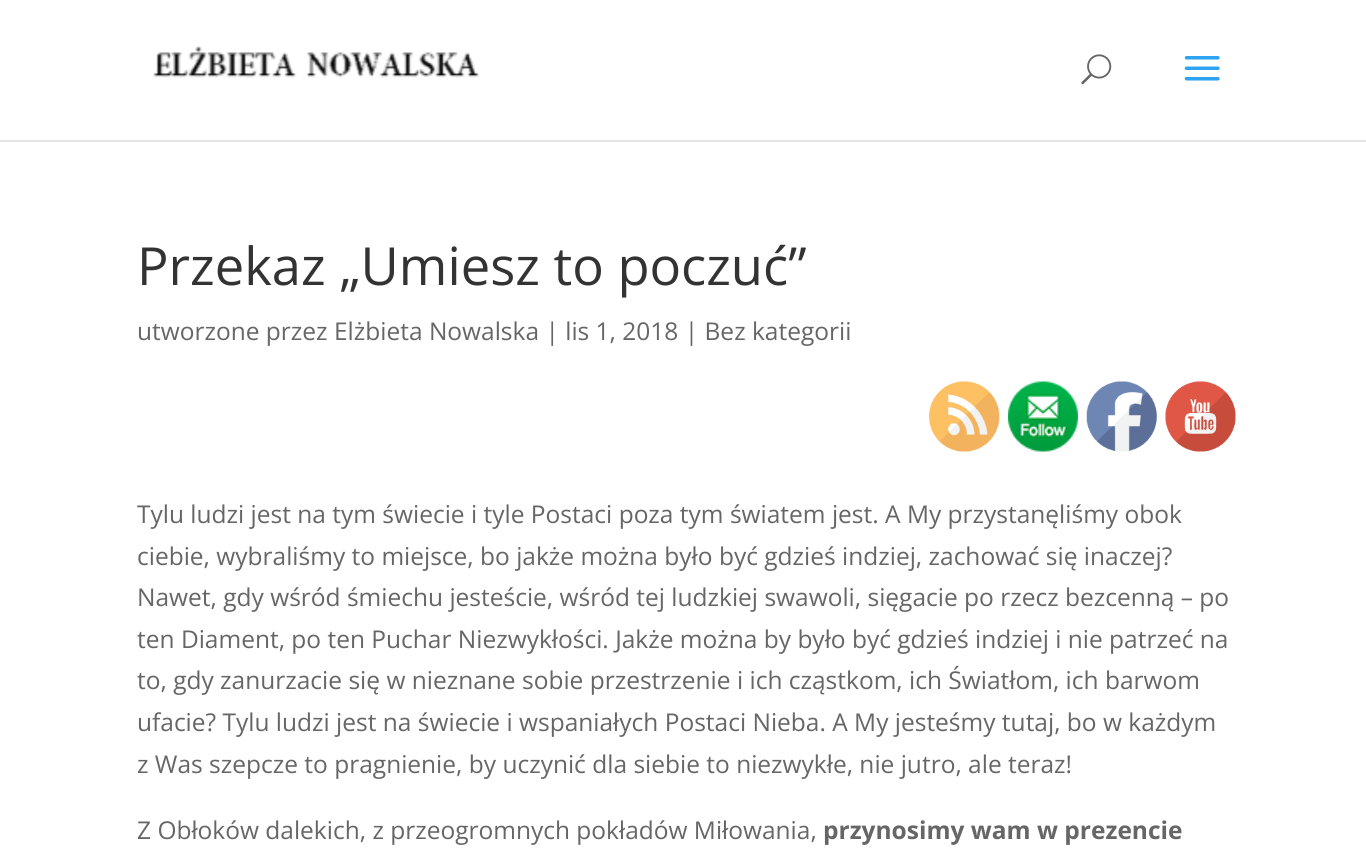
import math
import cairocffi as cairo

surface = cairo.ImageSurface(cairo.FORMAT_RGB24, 1366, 855)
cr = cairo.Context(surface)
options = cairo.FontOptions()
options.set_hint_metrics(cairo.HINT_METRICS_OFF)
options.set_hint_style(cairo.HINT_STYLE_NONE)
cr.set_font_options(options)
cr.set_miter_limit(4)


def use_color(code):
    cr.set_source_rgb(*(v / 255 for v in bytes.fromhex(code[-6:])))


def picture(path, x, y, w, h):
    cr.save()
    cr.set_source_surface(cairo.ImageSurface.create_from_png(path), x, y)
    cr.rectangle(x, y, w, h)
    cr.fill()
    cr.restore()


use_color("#ffffff")
cr.paint()
use_color("#e6e6e6")
cr.new_path()
cr.move_to(0, 140)
cr.line_to(0, 142)
cr.line_to(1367, 142)
cr.line_to(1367, 2)
cr.line_to(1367, 140)
cr.close_path()
cr.fill()
picture("img1.png", 153, 45, 327, 33)
picture("img2.png", 1081, 54, 31, 31)
picture("img3.png", 1184, 56, 36, 25)
cr.select_font_face("Open Sans")
cr.set_font_size(52.5)
use_color("#333333")
cr.move_to(137, 285)
cr.show_text("Przekaz „Umiesz to poczuć”")
cr.set_font_size(24.5)
use_color("#666666")
cr.move_to(137, 340)
cr.show_text("utworzone przez Elżbieta Nowalska | lis 1, 2018 | Bez kategorii")
cr.move_to(137, 523)
cr.show_text("Tylu ludzi jest na tym świecie i tyle Postaci poza tym światem jest. A My przystanęliśmy obok")
cr.move_to(137, 565)
cr.show_text("ciebie, wybraliśmy to miejsce, bo jakże można było być gdzieś indziej, zachować się inaczej?")
cr.move_to(137, 606)
cr.show_text("Nawet, gdy wśród śmiechu jesteście, wśród tej ludzkiej swawoli, sięgacie po rzecz bezcenną – po")
cr.move_to(137, 648)
cr.show_text("ten Diament, po ten Puchar Niezwykłości. Jakże można by było być gdzieś indziej i nie patrzeć na")
cr.move_to(137, 689)
cr.show_text("to, gdy zanurzacie się w nieznane sobie przestrzenie i ich cząstkom, ich Światłom, ich barwom")
cr.move_to(137, 731)
cr.show_text("ufacie? Tylu ludzi jest na świecie i wspaniałych Postaci Nieba. A My jesteśmy tutaj, bo w każdym")
cr.move_to(137, 773)
cr.show_text("z Was szepcze to pragnienie, by uczynić dla siebie to niezwykłe, nie jutro, ale teraz!")
cr.move_to(137, 839)
cr.show_text("Z Obłoków dalekich, z przeogromnych pokładów Miłowania,")
cr.select_font_face("Open Sans", cairo.FONT_SLANT_NORMAL, cairo.FONT_WEIGHT_BOLD)
cr.move_to(823, 839)
cr.show_text("przynosimy wam w prezencie")
picture("img4.png", 929, 381, 71, 71)
picture("img5.png", 1008, 381, 70, 71)
picture("img6.png", 1086, 381, 71, 71)
picture("img7.png", 1165, 381, 71, 71)
surface.write_to_png("result.png")
